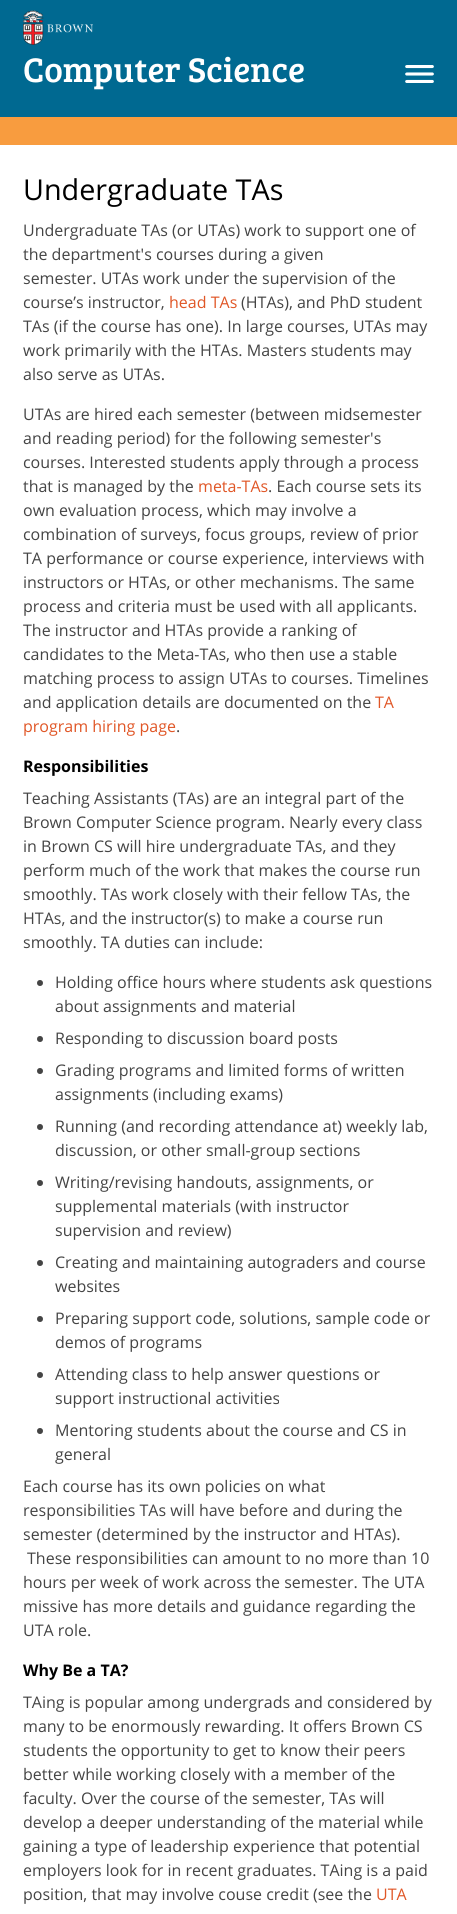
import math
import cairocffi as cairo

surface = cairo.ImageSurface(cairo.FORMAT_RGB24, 457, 1914)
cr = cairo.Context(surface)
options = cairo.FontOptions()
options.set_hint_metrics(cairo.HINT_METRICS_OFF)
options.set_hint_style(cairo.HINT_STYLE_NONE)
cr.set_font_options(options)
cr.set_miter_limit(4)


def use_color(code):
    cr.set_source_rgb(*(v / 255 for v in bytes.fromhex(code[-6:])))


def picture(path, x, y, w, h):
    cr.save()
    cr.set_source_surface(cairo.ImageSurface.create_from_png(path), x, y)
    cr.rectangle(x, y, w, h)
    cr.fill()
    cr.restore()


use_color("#006991")
cr.paint()
picture("img1.png", 23, 10, 70, 35)
cr.select_font_face("Bree Serif")
cr.set_font_size(35.25)
use_color("#ffffff")
cr.move_to(23, 82)
cr.show_text("Computer Science")
picture("img2.png", 405, 65, 29, 18)
use_color("#f89c3f")
cr.rectangle(0, 117, 457, 28)
cr.fill()
use_color("#ffffff")
cr.rectangle(0, 145, 457, 1769)
cr.fill()
cr.select_font_face("Open Sans")
cr.set_font_size(28.75)
use_color("#000000")
cr.move_to(23, 200)
cr.show_text("Undergraduate TAs")
cr.set_font_size(16)
use_color("#444444")
cr.move_to(23, 236)
cr.show_text("Undergraduate TAs (or UTAs) work to support one of")
cr.move_to(23, 260)
cr.show_text("the department's courses during a given")
cr.move_to(23, 284)
cr.show_text("semester. UTAs work under the supervision of the")
cr.move_to(23, 308)
cr.show_text("course’s instructor,")
use_color("#e05626")
cr.move_to(169, 308)
cr.show_text("head TAs")
use_color("#444444")
cr.move_to(241, 308)
cr.show_text("(HTAs), and PhD student")
cr.move_to(23, 332)
cr.show_text("TAs (if the course has one). In large courses, UTAs may")
cr.move_to(23, 356)
cr.show_text("work primarily with the HTAs. Masters students may")
cr.move_to(23, 380)
cr.show_text("also serve as UTAs.")
cr.move_to(23, 420)
cr.show_text("UTAs are hired each semester (between midsemester")
cr.move_to(23, 444)
cr.show_text("and reading period) for the following semester's")
cr.move_to(23, 468)
cr.show_text("courses. Interested students apply through a process")
cr.move_to(23, 492)
cr.show_text("that is managed by the")
use_color("#e05626")
cr.move_to(198, 492)
cr.show_text("meta-TAs")
use_color("#444444")
cr.move_to(268, 492)
cr.show_text(". Each course sets its")
cr.move_to(23, 516)
cr.show_text("own evaluation process, which may involve a")
cr.move_to(23, 540)
cr.show_text("combination of surveys, focus groups, review of prior")
cr.move_to(23, 564)
cr.show_text("TA performance or course experience, interviews with")
cr.move_to(23, 588)
cr.show_text("instructors or HTAs, or other mechanisms. The same")
cr.move_to(23, 612)
cr.show_text("process and criteria must be used with all applicants.")
cr.move_to(23, 636)
cr.show_text("The instructor and HTAs provide a ranking of")
cr.move_to(23, 660)
cr.show_text("candidates to the Meta-TAs, who then use a stable")
cr.move_to(23, 684)
cr.show_text("matching process to assign UTAs to courses. Timelines")
cr.move_to(23, 708)
cr.show_text("and application details are documented on the")
use_color("#e05626")
cr.move_to(375, 708)
cr.show_text("TA")
cr.move_to(23, 732)
cr.show_text("program hiring page")
use_color("#444444")
cr.move_to(176, 732)
cr.show_text(".")
cr.select_font_face("Open Sans", cairo.FONT_SLANT_NORMAL, cairo.FONT_WEIGHT_BOLD)
use_color("#000000")
cr.move_to(23, 772)
cr.show_text("Responsibilities")
cr.select_font_face("Open Sans")
use_color("#444444")
cr.move_to(23, 804)
cr.show_text("Teaching Assistants (TAs) are an integral part of the")
cr.move_to(23, 828)
cr.show_text("Brown Computer Science program. Nearly every class")
cr.move_to(23, 852)
cr.show_text("in Brown CS will hire undergraduate TAs, and they")
cr.move_to(23, 876)
cr.show_text("perform much of the work that makes the course run")
cr.move_to(23, 900)
cr.show_text("smoothly. TAs work closely with their fellow TAs, the")
cr.move_to(23, 924)
cr.show_text("HTAs, and the instructor(s) to make a course run")
cr.move_to(23, 948)
cr.show_text("smoothly. TA duties can include:")
cr.new_path()
cr.arc(40, 983, 3, 0, 2 * math.pi)
cr.fill()
cr.move_to(55, 988)
cr.show_text("Holding office hours where students ask questions")
cr.move_to(55, 1012)
cr.show_text("about assignments and material")
cr.new_path()
cr.arc(40, 1039, 3, 0, 2 * math.pi)
cr.fill()
cr.move_to(55, 1044)
cr.show_text("Responding to discussion board posts")
cr.new_path()
cr.arc(40, 1071, 3, 0, 2 * math.pi)
cr.fill()
cr.move_to(55, 1076)
cr.show_text("Grading programs and limited forms of written")
cr.move_to(55, 1100)
cr.show_text("assignments (including exams)")
cr.new_path()
cr.arc(40, 1127, 3, 0, 2 * math.pi)
cr.fill()
cr.move_to(55, 1132)
cr.show_text("Running (and recording attendance at) weekly lab,")
cr.move_to(55, 1156)
cr.show_text("discussion, or other small-group sections")
cr.new_path()
cr.arc(40, 1183, 3, 0, 2 * math.pi)
cr.fill()
cr.move_to(55, 1188)
cr.show_text("Writing/revising handouts, assignments, or")
cr.move_to(55, 1212)
cr.show_text("supplemental materials (with instructor")
cr.move_to(55, 1236)
cr.show_text("supervision and review)")
cr.new_path()
cr.arc(40, 1263, 3, 0, 2 * math.pi)
cr.fill()
cr.move_to(55, 1268)
cr.show_text("Creating and maintaining autograders and course")
cr.move_to(55, 1292)
cr.show_text("websites")
cr.new_path()
cr.arc(40, 1319, 3, 0, 2 * math.pi)
cr.fill()
cr.move_to(55, 1324)
cr.show_text("Preparing support code, solutions, sample code or")
cr.move_to(55, 1348)
cr.show_text("demos of programs")
cr.new_path()
cr.arc(40, 1375, 3, 0, 2 * math.pi)
cr.fill()
cr.move_to(55, 1380)
cr.show_text("Attending class to help answer questions or")
cr.move_to(55, 1404)
cr.show_text("support instructional activities")
cr.new_path()
cr.arc(40, 1431, 3, 0, 2 * math.pi)
cr.fill()
cr.move_to(55, 1436)
cr.show_text("Mentoring students about the course and CS in")
cr.move_to(55, 1460)
cr.show_text("general")
cr.move_to(23, 1492)
cr.show_text("Each course has its own policies on what")
cr.move_to(23, 1516)
cr.show_text("responsibilities TAs will have before and during the")
cr.move_to(23, 1540)
cr.show_text("semester (determined by the instructor and HTAs).")
cr.move_to(27, 1564)
cr.show_text("These responsibilities can amount to no more than 10")
cr.move_to(23, 1588)
cr.show_text("hours per week of work across the semester. The UTA")
cr.move_to(23, 1612)
cr.show_text("missive has more details and guidance regarding the")
cr.move_to(23, 1636)
cr.show_text("UTA role.")
cr.select_font_face("Open Sans", cairo.FONT_SLANT_NORMAL, cairo.FONT_WEIGHT_BOLD)
use_color("#000000")
cr.move_to(23, 1676)
cr.show_text("Why Be a TA?")
cr.select_font_face("Open Sans")
use_color("#444444")
cr.move_to(23, 1708)
cr.show_text("TAing is popular among undergrads and considered by")
cr.move_to(23, 1732)
cr.show_text("many to be enormously rewarding. It offers Brown CS")
cr.move_to(23, 1756)
cr.show_text("students the opportunity to get to know their peers")
cr.move_to(23, 1780)
cr.show_text("better while working closely with a member of the")
cr.move_to(23, 1804)
cr.show_text("faculty. Over the course of the semester, TAs will")
cr.move_to(23, 1828)
cr.show_text("develop a deeper understanding of the material while")
cr.move_to(23, 1852)
cr.show_text("gaining a type of leadership experience that potential")
cr.move_to(23, 1876)
cr.show_text("employers look for in recent graduates. TAing is a paid")
cr.move_to(23, 1900)
cr.show_text("position, that may involve couse credit (see the")
use_color("#e05626")
cr.move_to(376, 1900)
cr.show_text("UTA")
surface.write_to_png("result.png")
